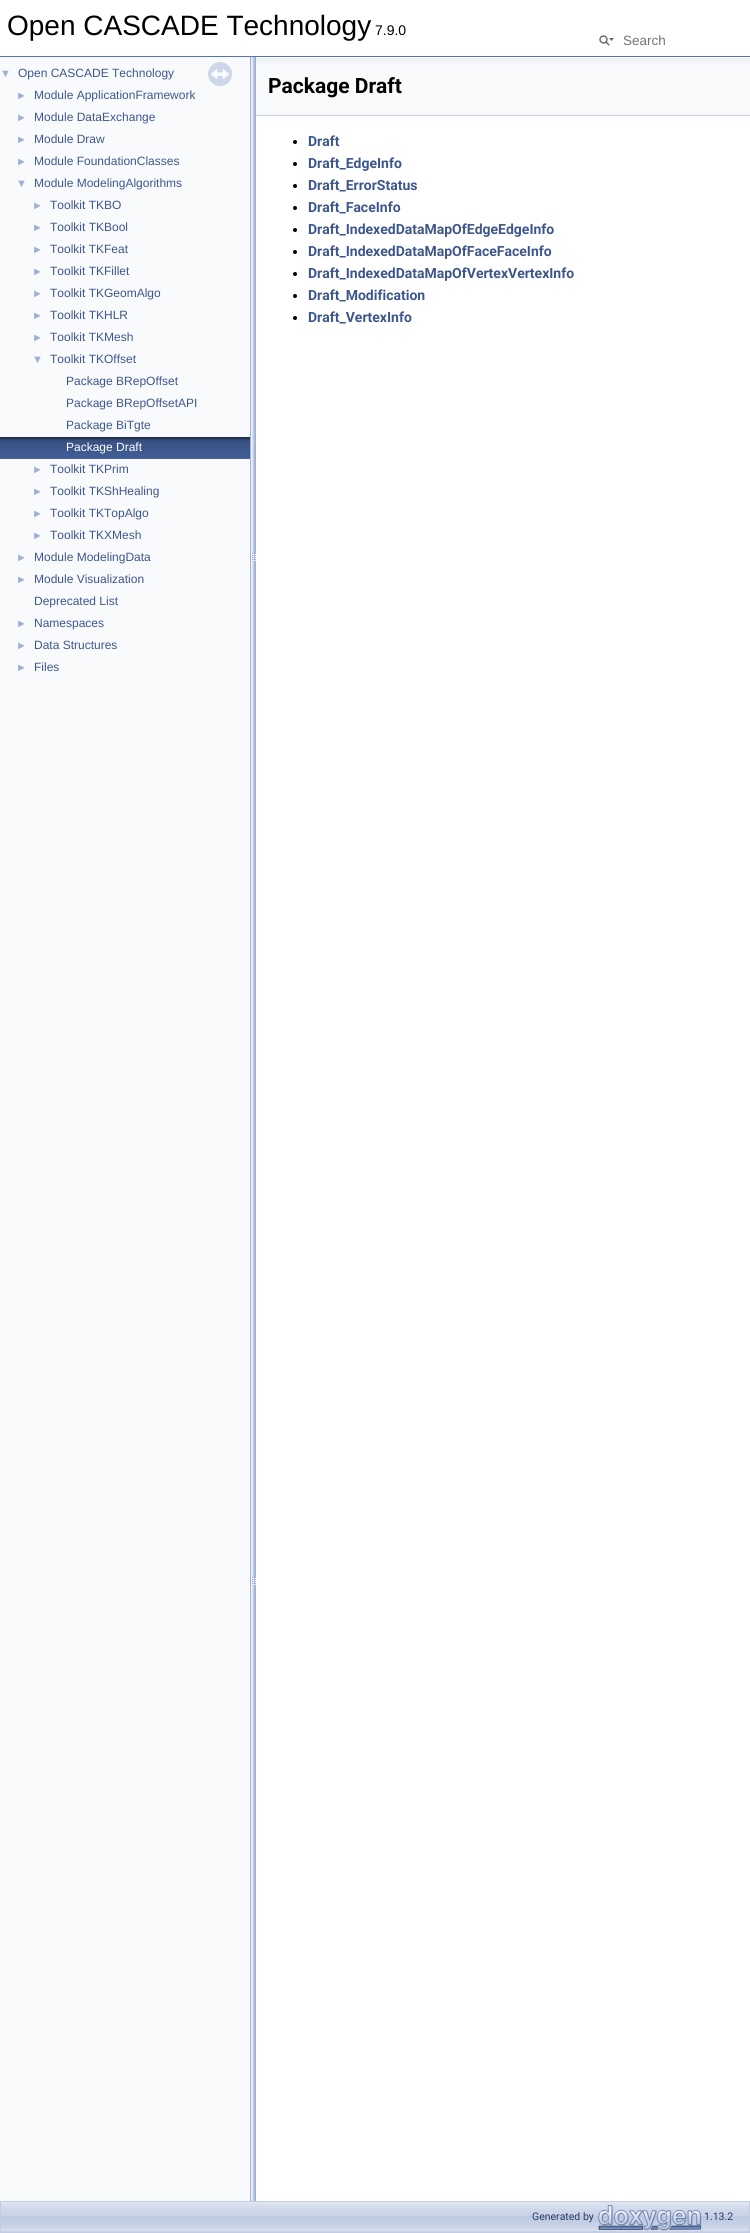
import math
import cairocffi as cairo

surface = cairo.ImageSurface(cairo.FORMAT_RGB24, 750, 2233)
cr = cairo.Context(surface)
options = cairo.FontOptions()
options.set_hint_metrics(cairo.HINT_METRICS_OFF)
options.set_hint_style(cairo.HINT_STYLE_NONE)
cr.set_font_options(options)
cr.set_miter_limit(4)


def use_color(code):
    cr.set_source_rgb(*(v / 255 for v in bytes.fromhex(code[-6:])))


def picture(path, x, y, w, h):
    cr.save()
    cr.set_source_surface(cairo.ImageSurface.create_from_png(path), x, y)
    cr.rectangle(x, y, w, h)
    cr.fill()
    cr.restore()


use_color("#ffffff")
cr.paint()
use_color("#5373b4")
cr.rectangle(0, 56, 750, 1)
cr.fill()
cr.select_font_face("Liberation Sans")
cr.set_font_size(28)
use_color("#000000")
cr.move_to(7, 35)
cr.show_text("Open CASCADE Technology")
cr.set_font_size(14)
cr.move_to(375, 35)
cr.show_text("7.9.0")
picture("img1.png", 599, 35, 15, 11)
cr.set_font_size(13.5)
use_color("#757575")
cr.move_to(623, 45)
cr.show_text("Search")
use_color("#f9fafc")
cr.rectangle(0, 57, 250, 2144)
cr.fill()
cr.set_font_size(11)
use_color("#9cafd4")
cr.move_to(0, 77)
cr.show_text("▼")
cr.set_font_size(12)
use_color("#3d578c")
cr.move_to(18, 77)
cr.show_text("Open CASCADE Technology")
cr.set_font_size(11)
use_color("#9cafd4")
cr.move_to(16, 99)
cr.show_text("►")
cr.set_font_size(12)
use_color("#3d578c")
cr.move_to(34, 99)
cr.show_text("Module ApplicationFramework")
cr.set_font_size(11)
use_color("#9cafd4")
cr.move_to(16, 121)
cr.show_text("►")
cr.set_font_size(12)
use_color("#3d578c")
cr.move_to(34, 121)
cr.show_text("Module DataExchange")
cr.set_font_size(11)
use_color("#9cafd4")
cr.move_to(16, 143)
cr.show_text("►")
cr.set_font_size(12)
use_color("#3d578c")
cr.move_to(34, 143)
cr.show_text("Module Draw")
cr.set_font_size(11)
use_color("#9cafd4")
cr.move_to(16, 165)
cr.show_text("►")
cr.set_font_size(12)
use_color("#3d578c")
cr.move_to(34, 165)
cr.show_text("Module FoundationClasses")
cr.set_font_size(11)
use_color("#9cafd4")
cr.move_to(16, 187)
cr.show_text("▼")
cr.set_font_size(12)
use_color("#3d578c")
cr.move_to(34, 187)
cr.show_text("Module ModelingAlgorithms")
cr.set_font_size(11)
use_color("#9cafd4")
cr.move_to(32, 209)
cr.show_text("►")
cr.set_font_size(12)
use_color("#3d578c")
cr.move_to(50, 209)
cr.show_text("Toolkit TKBO")
cr.set_font_size(11)
use_color("#9cafd4")
cr.move_to(32, 231)
cr.show_text("►")
cr.set_font_size(12)
use_color("#3d578c")
cr.move_to(50, 231)
cr.show_text("Toolkit TKBool")
cr.set_font_size(11)
use_color("#9cafd4")
cr.move_to(32, 253)
cr.show_text("►")
cr.set_font_size(12)
use_color("#3d578c")
cr.move_to(50, 253)
cr.show_text("Toolkit TKFeat")
cr.set_font_size(11)
use_color("#9cafd4")
cr.move_to(32, 275)
cr.show_text("►")
cr.set_font_size(12)
use_color("#3d578c")
cr.move_to(50, 275)
cr.show_text("Toolkit TKFillet")
cr.set_font_size(11)
use_color("#9cafd4")
cr.move_to(32, 297)
cr.show_text("►")
cr.set_font_size(12)
use_color("#3d578c")
cr.move_to(50, 297)
cr.show_text("Toolkit TKGeomAlgo")
cr.set_font_size(11)
use_color("#9cafd4")
cr.move_to(32, 319)
cr.show_text("►")
cr.set_font_size(12)
use_color("#3d578c")
cr.move_to(50, 319)
cr.show_text("Toolkit TKHLR")
cr.set_font_size(11)
use_color("#9cafd4")
cr.move_to(32, 341)
cr.show_text("►")
cr.set_font_size(12)
use_color("#3d578c")
cr.move_to(50, 341)
cr.show_text("Toolkit TKMesh")
cr.set_font_size(11)
use_color("#9cafd4")
cr.move_to(32, 363)
cr.show_text("▼")
cr.set_font_size(12)
use_color("#3d578c")
cr.move_to(50, 363)
cr.show_text("Toolkit TKOffset")
cr.move_to(66, 385)
cr.show_text("Package BRepOffset")
cr.move_to(66, 407)
cr.show_text("Package BRepOffsetAPI")
cr.move_to(66, 429)
cr.show_text("Package BiTgte")
picture("img2.png", 0, 437, 250, 22)
use_color("#ffffff")
cr.move_to(66, 451)
cr.show_text("Package Draft")
cr.set_font_size(11)
use_color("#9cafd4")
cr.move_to(32, 473)
cr.show_text("►")
cr.set_font_size(12)
use_color("#3d578c")
cr.move_to(50, 473)
cr.show_text("Toolkit TKPrim")
cr.set_font_size(11)
use_color("#9cafd4")
cr.move_to(32, 495)
cr.show_text("►")
cr.set_font_size(12)
use_color("#3d578c")
cr.move_to(50, 495)
cr.show_text("Toolkit TKShHealing")
cr.set_font_size(11)
use_color("#9cafd4")
cr.move_to(32, 517)
cr.show_text("►")
cr.set_font_size(12)
use_color("#3d578c")
cr.move_to(50, 517)
cr.show_text("Toolkit TKTopAlgo")
cr.set_font_size(11)
use_color("#9cafd4")
cr.move_to(32, 539)
cr.show_text("►")
cr.set_font_size(12)
use_color("#3d578c")
cr.move_to(50, 539)
cr.show_text("Toolkit TKXMesh")
cr.set_font_size(11)
use_color("#9cafd4")
cr.move_to(16, 561)
cr.show_text("►")
cr.set_font_size(12)
use_color("#3d578c")
cr.move_to(34, 561)
cr.show_text("Module ModelingData")
cr.set_font_size(11)
use_color("#9cafd4")
cr.move_to(16, 583)
cr.show_text("►")
cr.set_font_size(12)
use_color("#3d578c")
cr.move_to(34, 583)
cr.show_text("Module Visualization")
cr.move_to(34, 605)
cr.show_text("Deprecated List")
cr.set_font_size(11)
use_color("#9cafd4")
cr.move_to(16, 627)
cr.show_text("►")
cr.set_font_size(12)
use_color("#3d578c")
cr.move_to(34, 627)
cr.show_text("Namespaces")
cr.set_font_size(11)
use_color("#9cafd4")
cr.move_to(16, 649)
cr.show_text("►")
cr.set_font_size(12)
use_color("#3d578c")
cr.move_to(34, 649)
cr.show_text("Data Structures")
cr.set_font_size(11)
use_color("#9cafd4")
cr.move_to(16, 671)
cr.show_text("►")
cr.set_font_size(12)
use_color("#3d578c")
cr.move_to(34, 671)
cr.show_text("Files")
picture("img3.png", 208, 62, 24, 24)
picture("img4.png", 250, 57, 6, 2144)
use_color("#f9fafc")
cr.rectangle(256, 65, 494, 50)
cr.fill()
picture("img5.png", 256, 57, 494, 8)
use_color("#c4cfe5")
cr.rectangle(256, 115, 494, 1)
cr.fill()
cr.select_font_face("Roboto", cairo.FONT_SLANT_NORMAL, cairo.FONT_WEIGHT_BOLD)
cr.set_font_size(21)
use_color("#000000")
cr.move_to(268, 93)
cr.show_text("Package Draft")
cr.new_path()
cr.arc(295, 142, 2, 0, 2 * math.pi)
cr.fill()
cr.set_font_size(14)
use_color("#3d578c")
cr.move_to(308, 146)
cr.show_text("Draft")
use_color("#000000")
cr.new_path()
cr.arc(295, 164, 2, 0, 2 * math.pi)
cr.fill()
use_color("#3d578c")
cr.move_to(308, 168)
cr.show_text("Draft_EdgeInfo")
use_color("#000000")
cr.new_path()
cr.arc(295, 186, 2, 0, 2 * math.pi)
cr.fill()
use_color("#3d578c")
cr.move_to(308, 190)
cr.show_text("Draft_ErrorStatus")
use_color("#000000")
cr.new_path()
cr.arc(295, 208, 2, 0, 2 * math.pi)
cr.fill()
use_color("#3d578c")
cr.move_to(308, 212)
cr.show_text("Draft_FaceInfo")
use_color("#000000")
cr.new_path()
cr.arc(295, 230, 2, 0, 2 * math.pi)
cr.fill()
use_color("#3d578c")
cr.move_to(308, 234)
cr.show_text("Draft_IndexedDataMapOfEdgeEdgeInfo")
use_color("#000000")
cr.new_path()
cr.arc(295, 252, 2, 0, 2 * math.pi)
cr.fill()
use_color("#3d578c")
cr.move_to(308, 256)
cr.show_text("Draft_IndexedDataMapOfFaceFaceInfo")
use_color("#000000")
cr.new_path()
cr.arc(295, 274, 2, 0, 2 * math.pi)
cr.fill()
use_color("#3d578c")
cr.move_to(308, 278)
cr.show_text("Draft_IndexedDataMapOfVertexVertexInfo")
use_color("#000000")
cr.new_path()
cr.arc(295, 296, 2, 0, 2 * math.pi)
cr.fill()
use_color("#3d578c")
cr.move_to(308, 300)
cr.show_text("Draft_Modification")
use_color("#000000")
cr.new_path()
cr.arc(295, 318, 2, 0, 2 * math.pi)
cr.fill()
use_color("#3d578c")
cr.move_to(308, 322)
cr.show_text("Draft_VertexInfo")
picture("img6.png", 1, 2202, 748, 30)
cr.rectangle(0.5, 2201.5, 749, 31)
use_color("#c2cde4")
cr.set_line_width(1)
cr.stroke()
cr.select_font_face("Roboto")
cr.set_font_size(10.5)
use_color("#2a3d61")
cr.move_to(532, 2220)
cr.show_text("Generated by")
picture("img7.png", 598, 2205, 104, 26)
cr.move_to(704, 2220)
cr.show_text("1.13.2")
surface.write_to_png("result.png")
